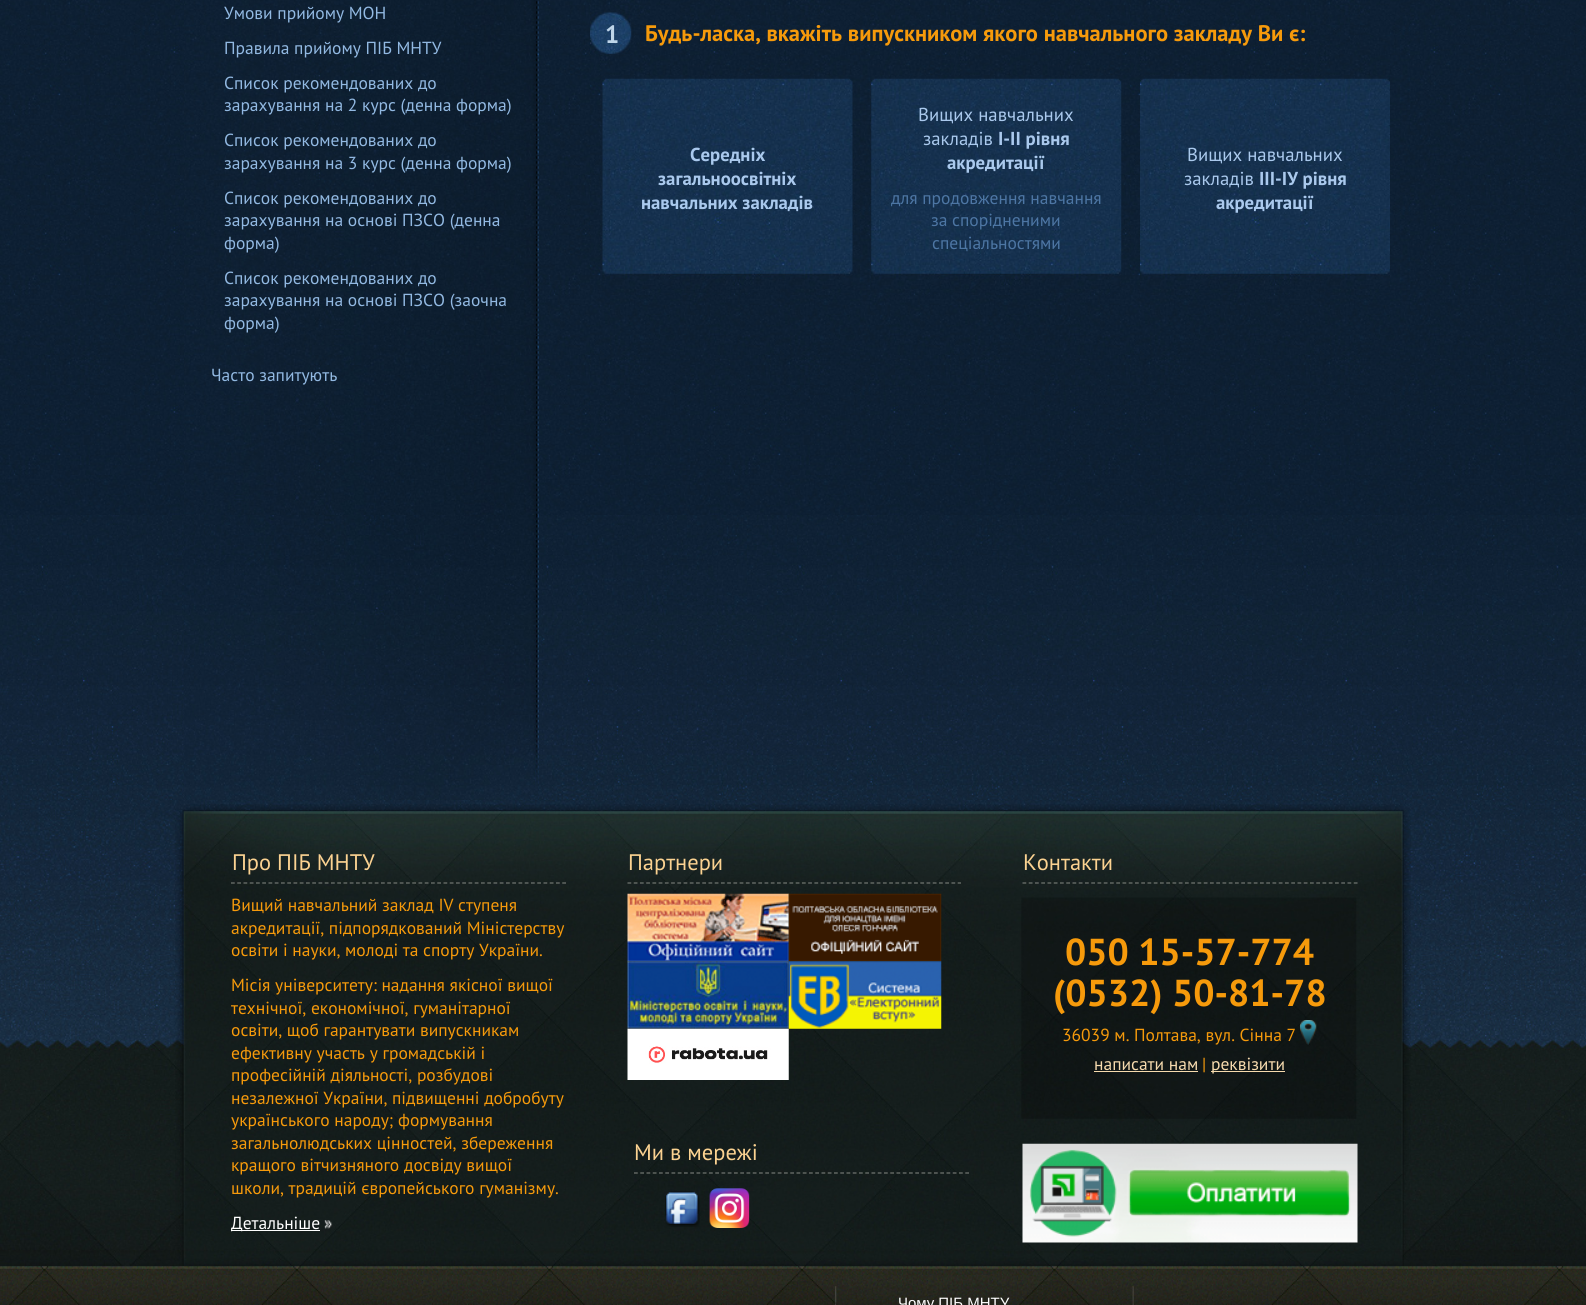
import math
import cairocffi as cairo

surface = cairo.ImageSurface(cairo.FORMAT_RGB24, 1586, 1305)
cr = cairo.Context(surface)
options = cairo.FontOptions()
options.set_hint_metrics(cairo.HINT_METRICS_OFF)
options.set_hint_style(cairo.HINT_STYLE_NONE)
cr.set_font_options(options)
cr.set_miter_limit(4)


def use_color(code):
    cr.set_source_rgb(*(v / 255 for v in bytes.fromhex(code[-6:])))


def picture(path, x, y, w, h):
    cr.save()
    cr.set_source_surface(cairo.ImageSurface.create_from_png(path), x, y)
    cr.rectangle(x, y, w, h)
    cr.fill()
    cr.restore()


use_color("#ffffff")
cr.paint()
picture("img1.png", 0, 0, 1586, 1267)
picture("img2.png", 0, 515, 1586, 285)
picture("img3.png", 184, 0, 355, 800)
picture("img4.png", 184, 515, 355, 285)
cr.select_font_face("PT Sans")
cr.set_font_size(17.5)
use_color("#92b9e2")
cr.move_to(224, 19)
cr.show_text("Умови прийому МОН")
cr.move_to(224, 54)
cr.show_text("Правила прийому ПІБ МНТУ")
cr.move_to(224, 89)
cr.show_text("Список рекомендованих до")
cr.move_to(224, 111)
cr.show_text("зарахування на 2 курс (денна форма)")
cr.move_to(224, 146)
cr.show_text("Список рекомендованих до")
cr.move_to(224, 169)
cr.show_text("зарахування на 3 курс (денна форма)")
cr.move_to(224, 204)
cr.show_text("Список рекомендованих до")
cr.move_to(224, 226)
cr.show_text("зарахування на основі ПЗСО (денна")
cr.move_to(224, 249)
cr.show_text("форма)")
cr.move_to(224, 284)
cr.show_text("Список рекомендованих до")
cr.move_to(224, 306)
cr.show_text("зарахування на основі ПЗСО (заочна")
cr.move_to(224, 329)
cr.show_text("форма)")
cr.move_to(211, 381)
cr.show_text("Часто запитують")
picture("img5.png", 590, 12, 42, 42)
cr.select_font_face("PT Sans", cairo.FONT_SLANT_NORMAL, cairo.FONT_WEIGHT_BOLD)
cr.set_font_size(25)
use_color("#bed5e9")
cr.move_to(605, 43)
cr.show_text("1")
cr.set_font_size(22.5)
use_color("#f69a0b")
cr.move_to(645, 41)
cr.show_text("Будь-ласка, вкажіть випускником якого навчального закладу Ви є:")
picture("img6.png", 602, 78, 251, 215)
cr.set_font_size(18.75)
use_color("#aac9ed")
cr.move_to(690, 161)
cr.show_text("Середніх")
cr.move_to(658, 185)
cr.show_text("загальноосвітніх")
cr.move_to(641, 209)
cr.show_text("навчальних закладів")
picture("img7.png", 871, 78, 251, 215)
cr.select_font_face("PT Sans")
cr.move_to(918, 121)
cr.show_text("Вищих навчальних")
cr.move_to(923, 145)
cr.show_text("закладів")
cr.select_font_face("PT Sans", cairo.FONT_SLANT_NORMAL, cairo.FONT_WEIGHT_BOLD)
cr.move_to(998, 145)
cr.show_text("І-ІІ рівня")
cr.move_to(947, 169)
cr.show_text("акредитації")
cr.select_font_face("PT Sans")
cr.set_font_size(17.5)
use_color("#4d76a4")
cr.move_to(891, 204)
cr.show_text("для продовження навчання")
cr.move_to(931, 226)
cr.show_text("за спорідненими")
cr.move_to(932, 249)
cr.show_text("спеціальностями")
picture("img8.png", 1140, 78, 250, 215)
cr.set_font_size(18.75)
use_color("#aac9ed")
cr.move_to(1187, 161)
cr.show_text("Вищих навчальних")
cr.move_to(1184, 185)
cr.show_text("закладів")
cr.select_font_face("PT Sans", cairo.FONT_SLANT_NORMAL, cairo.FONT_WEIGHT_BOLD)
cr.move_to(1259, 185)
cr.show_text("ІІІ-ІУ рівня")
cr.move_to(1216, 209)
cr.show_text("акредитації")
picture("img9.png", 0, 800, 1586, 467)
picture("img10.png", 175, 804, 1236, 462)
picture("img11.png", 183, 811, 1220, 456)
cr.new_path()
cr.move_to(231, 883)
cr.line_to(566, 883)
use_color("#737873")
cr.set_line_width(1.2)
cr.set_dash([3.75, 2.5])
cr.stroke()
cr.select_font_face("PT Sans")
cr.set_font_size(22.5)
use_color("#fbd291")
cr.move_to(232, 870)
cr.show_text("Про ПІБ МНТУ")
cr.set_font_size(17.5)
use_color("#f69a0b")
cr.move_to(231, 911)
cr.show_text("Вищий навчальний заклад IV ступеня")
cr.move_to(231, 934)
cr.show_text("акредитації, підпорядкований Мiнiстерству")
cr.move_to(231, 956)
cr.show_text("освіти i науки, молоді та спорту України.")
cr.move_to(231, 991)
cr.show_text("Місія університету: надання якісної вищої")
cr.move_to(231, 1014)
cr.show_text("технічної, економічної, гуманітарної")
cr.move_to(231, 1036)
cr.show_text("освіти, щоб гарантувати випускникам")
cr.move_to(231, 1059)
cr.show_text("ефективну участь у громадській і")
cr.move_to(231, 1081)
cr.show_text("професійній діяльності, розбудові")
cr.move_to(231, 1104)
cr.show_text("незалежної України, підвищенні добробуту")
cr.move_to(231, 1126)
cr.show_text("українського народу; формування")
cr.move_to(231, 1149)
cr.show_text("загальнолюдських цінностей, збереження")
cr.move_to(231, 1171)
cr.show_text("кращого вітчизняного досвіду вищої")
cr.move_to(231, 1194)
cr.show_text("школи, традицій європейського гуманізму.")
use_color("#ffffff")
cr.rectangle(231, 1230, 89, 1)
cr.fill()
cr.move_to(231, 1229)
cr.show_text("Детальніше")
picture("img12.png", 324, 1220, 9, 9)
cr.new_path()
cr.move_to(627.5, 883)
cr.line_to(961, 883)
use_color("#737873")
cr.set_dash([3.75, 2.48])
cr.stroke()
cr.set_font_size(22.5)
use_color("#fbd291")
cr.move_to(628, 870)
cr.show_text("Партнери")
picture("img13.png", 627, 893, 162, 69)
picture("img14.png", 788, 893, 154, 69)
picture("img15.png", 627, 961, 162, 68)
picture("img16.png", 788, 961, 154, 68)
picture("img17.png", 627, 1028, 162, 52)
cr.new_path()
cr.move_to(1022.5, 883)
cr.line_to(1357.5, 883)
use_color("#737873")
cr.set_dash([3.75, 2.5])
cr.stroke()
use_color("#fbd291")
cr.move_to(1023, 870)
cr.show_text("Контакти")
cr.select_font_face("PT Sans", cairo.FONT_SLANT_NORMAL, cairo.FONT_WEIGHT_BOLD)
cr.set_font_size(37.5)
use_color("#f69a0b")
cr.move_to(1065, 965)
cr.show_text("050 15-57-774")
cr.move_to(1053, 1006)
cr.show_text("(0532) 50-81-78")
cr.select_font_face("PT Sans")
cr.set_font_size(17.5)
cr.move_to(1062, 1041)
cr.show_text("36039 м. Полтава, вул. Сінна 7")
picture("img18.png", 1300, 1020, 17, 25)
use_color("#f7dbae")
cr.move_to(1094, 1070)
cr.show_text("написати нам")
cr.rectangle(1094, 1071, 104, 1)
cr.fill()
use_color("#f69a0b")
cr.move_to(1202, 1070)
cr.show_text("|")
use_color("#f7dbae")
cr.rectangle(1211, 1071, 74, 1)
cr.fill()
cr.move_to(1211, 1070)
cr.show_text("реквізити")
picture("img19.png", 1022, 1143, 336, 100)
cr.new_path()
cr.move_to(634, 1173)
cr.line_to(969, 1173)
use_color("#737873")
cr.stroke()
cr.set_font_size(22.5)
use_color("#fbd291")
cr.move_to(634, 1160)
cr.show_text("Ми в мережі")
picture("img20.png", 665, 1191, 35, 36)
picture("img21.png", 709, 1188, 41, 40)
picture("img22.png", 0, 1266, 1586, 39)
picture("img23.png", 835, 1286, 299, 19)
cr.select_font_face("Liberation Sans")
cr.set_font_size(15)
use_color("#ffffff")
cr.move_to(898, 1308)
cr.show_text("Чому ПІБ МНТУ")
surface.write_to_png("result.png")
